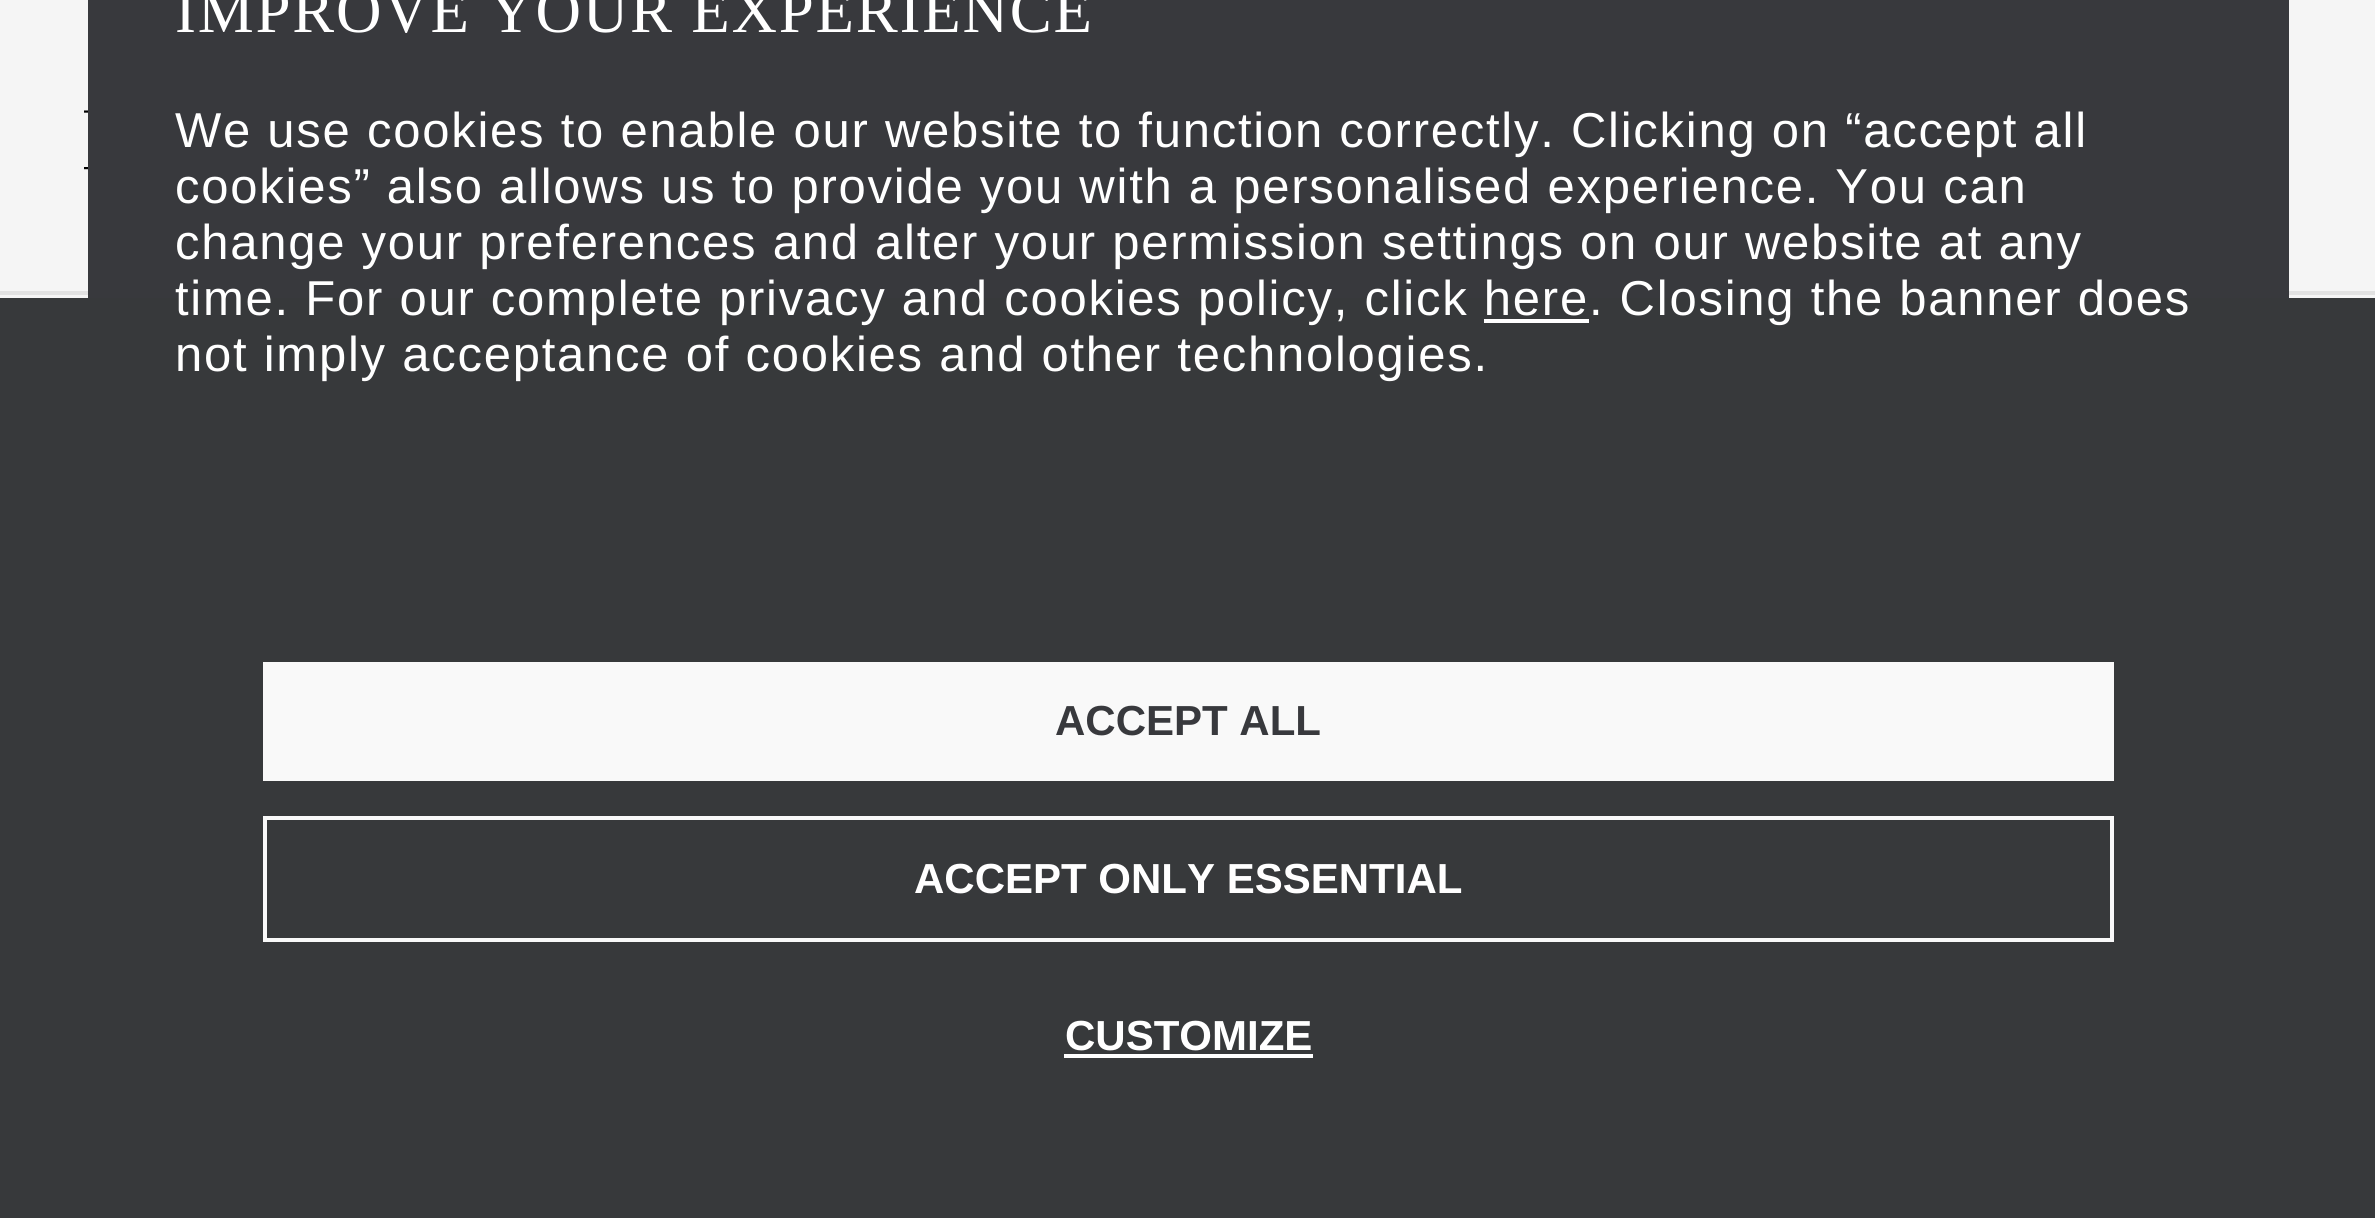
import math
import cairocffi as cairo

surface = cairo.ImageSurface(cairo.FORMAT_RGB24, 2375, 1218)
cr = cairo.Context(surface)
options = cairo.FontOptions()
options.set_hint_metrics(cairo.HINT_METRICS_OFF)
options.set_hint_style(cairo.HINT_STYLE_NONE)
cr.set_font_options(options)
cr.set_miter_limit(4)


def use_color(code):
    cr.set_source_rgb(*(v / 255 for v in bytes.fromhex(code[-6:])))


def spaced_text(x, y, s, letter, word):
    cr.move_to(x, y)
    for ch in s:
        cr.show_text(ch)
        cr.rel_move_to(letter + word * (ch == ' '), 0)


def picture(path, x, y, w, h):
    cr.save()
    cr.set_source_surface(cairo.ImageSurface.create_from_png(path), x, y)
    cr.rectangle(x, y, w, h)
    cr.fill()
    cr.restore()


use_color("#f5f5f5")
cr.paint()
use_color("#e2e2e2")
cr.rectangle(0, 291, 2375, 4)
cr.fill()
use_color("#38393d")
cr.rectangle(88, 0, 2201, 298)
cr.fill()
cr.select_font_face("Liberation Serif")
cr.set_font_size(63)
use_color("#ffffff")
spaced_text(175, 32, "IMPROVE YOUR EXPERIENCE", 1.75, 0)
cr.select_font_face("Liberation Sans")
cr.set_font_size(49)
spaced_text(175, 147, "We use cookies to enable our website to function correctly. Clicking on “accept all", 1.75, 0)
spaced_text(175, 203, "cookies” also allows us to provide you with a personalised experience. You can", 1.75, 0)
spaced_text(175, 259, "change your preferences and alter your permission settings on our website at any", 1.75, 0)
use_color("#37393b")
cr.rectangle(0, 298, 2375, 920)
cr.fill()
use_color("#ffffff")
spaced_text(175, 315, "time. For our complete privacy and cookies policy, click here. Closing the banner does", 1.75, 0)
cr.rectangle(1484, 319, 105, 4)
cr.fill()
spaced_text(175, 371, "not imply acceptance of cookies and other technologies.", 1.75, 0)
use_color("#f9f9f9")
cr.rectangle(263, 662, 1851, 119)
cr.fill()
cr.select_font_face("Liberation Sans", cairo.FONT_SLANT_NORMAL, cairo.FONT_WEIGHT_BOLD)
cr.set_font_size(42)
use_color("#38393d")
cr.move_to(1055, 735)
cr.show_text("ACCEPT ALL")
cr.rectangle(265, 818, 1847, 122)
use_color("#f9f9f9")
cr.set_line_width(4)
cr.stroke()
use_color("#ffffff")
cr.move_to(914, 893)
cr.show_text("ACCEPT ONLY ESSENTIAL")
cr.move_to(1065, 1050)
cr.show_text("CUSTOMIZE")
cr.rectangle(1064, 1054, 249, 4)
cr.fill()
picture("img1.png", 84, 110, 4, 60)
surface.write_to_png("result.png")
